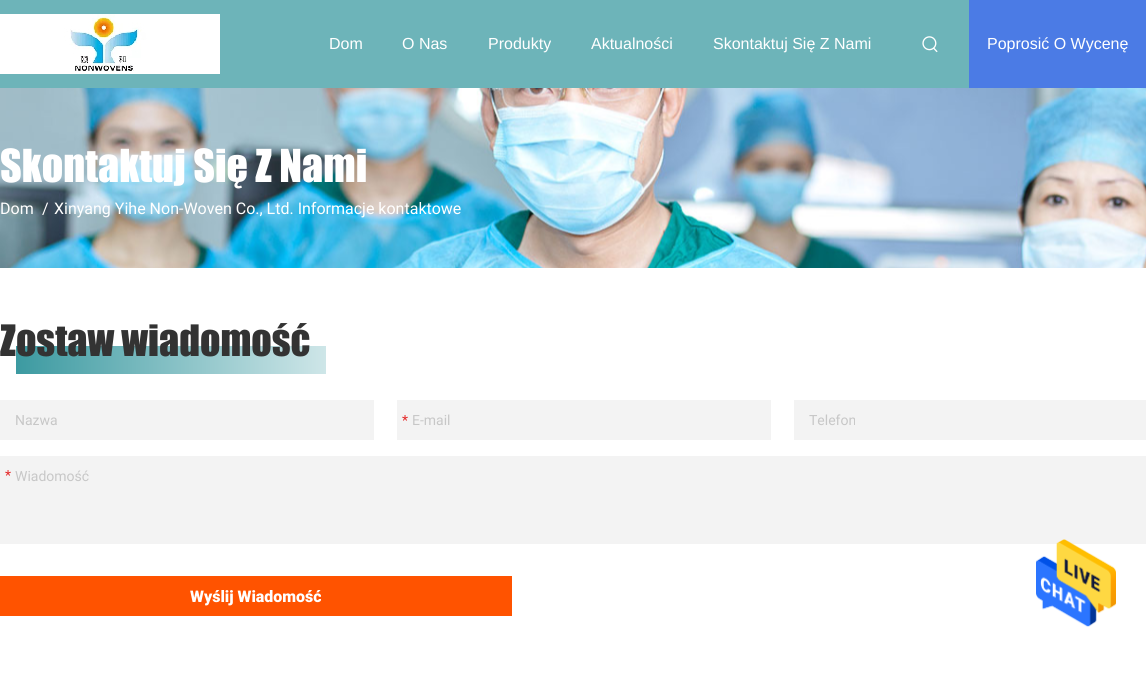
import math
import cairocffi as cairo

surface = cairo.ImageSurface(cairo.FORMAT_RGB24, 1146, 674)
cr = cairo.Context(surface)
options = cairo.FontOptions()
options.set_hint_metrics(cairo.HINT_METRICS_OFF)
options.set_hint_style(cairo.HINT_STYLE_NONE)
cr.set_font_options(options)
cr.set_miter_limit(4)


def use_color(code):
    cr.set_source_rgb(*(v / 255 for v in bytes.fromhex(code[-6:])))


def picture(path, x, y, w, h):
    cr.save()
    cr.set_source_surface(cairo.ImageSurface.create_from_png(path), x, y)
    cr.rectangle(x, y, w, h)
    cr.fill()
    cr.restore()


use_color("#ffffff")
cr.paint()
use_color("#6db4b9")
cr.rectangle(0, 0, 969, 88)
cr.fill()
picture("img1.png", 0, 14, 220, 60)
cr.select_font_face("Liberation Sans")
cr.set_font_size(16)
use_color("#ffffff")
cr.move_to(329, 49)
cr.show_text("Dom")
cr.move_to(402, 49)
cr.show_text("O Nas")
cr.move_to(488, 49)
cr.show_text("Produkty")
cr.move_to(591, 49)
cr.show_text("Aktualności")
cr.move_to(713, 49)
cr.show_text("Skontaktuj Się Z Nami")
picture("img2.png", 922, 36, 16, 17)
use_color("#4b7be5")
cr.rectangle(969, 0, 177, 88)
cr.fill()
use_color("#ffffff")
cr.move_to(987, 49)
cr.show_text("Poprosić O Wycenę")
picture("img3.png", 0, 88, 1146, 180)
cr.select_font_face("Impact")
cr.set_font_size(42)
cr.move_to(0, 182)
cr.show_text("Skontaktuj Się Z Nami")
cr.select_font_face("Roboto")
cr.set_font_size(16)
cr.move_to(0, 214)
cr.show_text("Dom")
cr.move_to(42, 214)
cr.show_text("/")
cr.move_to(54, 214)
cr.show_text("Xinyang Yihe Non-Woven Co., Ltd. Informacje kontaktowe")
gradient = cairo.LinearGradient(16, 360, 326, 360)
gradient.add_color_stop_rgba(0, 0.235, 0.604, 0.631, 1)
gradient.add_color_stop_rgba(1, 0.808, 0.902, 0.91, 1)
cr.set_source(gradient)
cr.rectangle(16, 346, 310, 28)
cr.fill()
cr.select_font_face("Impact")
cr.set_font_size(40)
use_color("#333333")
cr.move_to(0, 356)
cr.show_text("Zostaw wiadomość")
use_color("#f3f3f3")
cr.rectangle(0, 400, 374, 40)
cr.fill()
cr.select_font_face("Roboto")
cr.set_font_size(14)
use_color("#c7c7c7")
cr.move_to(15, 425)
cr.show_text("Nazwa")
use_color("#f3f3f3")
cr.rectangle(397, 400, 374, 40)
cr.fill()
use_color("#e52a2a")
cr.move_to(402, 425)
cr.show_text("*")
use_color("#c7c7c7")
cr.move_to(412, 425)
cr.show_text("E-mail")
use_color("#f3f3f3")
cr.rectangle(794, 400, 352, 40)
cr.fill()
use_color("#c7c7c7")
cr.move_to(809, 425)
cr.show_text("Telefon")
use_color("#f3f3f3")
cr.rectangle(0, 456, 1146, 88)
cr.fill()
use_color("#e52a2a")
cr.move_to(5, 480)
cr.show_text("*")
use_color("#c7c7c7")
cr.move_to(15, 481)
cr.show_text("Wiadomość")
use_color("#ff5300")
cr.rectangle(0, 576, 512, 40)
cr.fill()
cr.select_font_face("Roboto Black")
cr.set_font_size(16)
use_color("#ffffff")
cr.move_to(190, 602)
cr.show_text("Wyślij Wiadomość")
picture("img4.png", 1036, 539, 80, 88)
surface.write_to_png("result.png")
